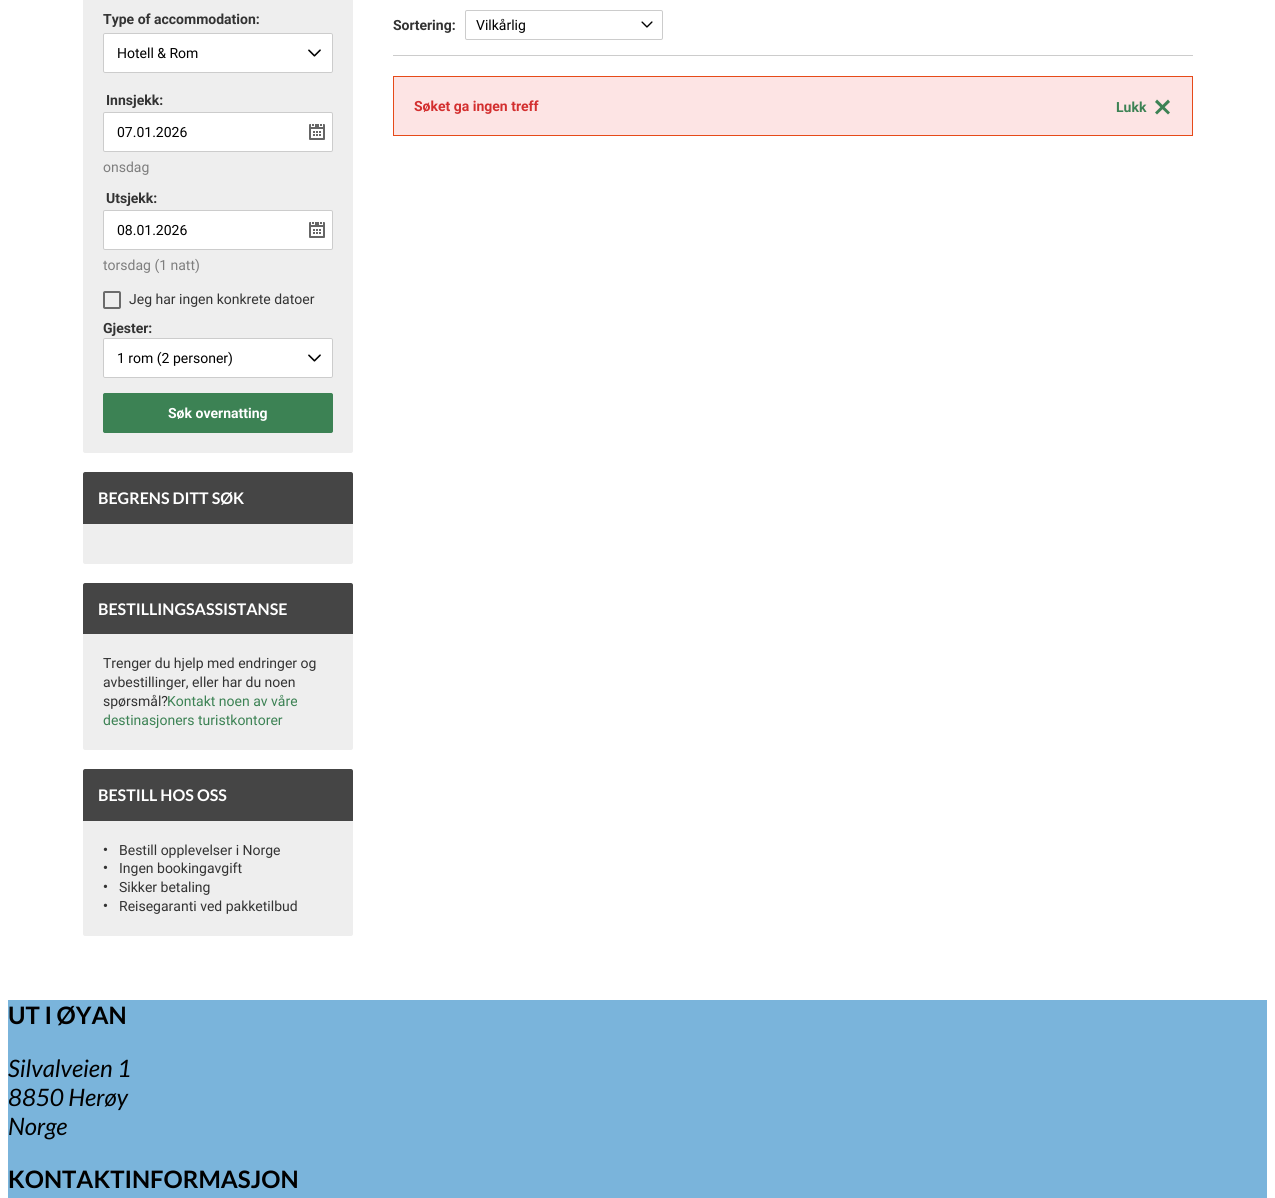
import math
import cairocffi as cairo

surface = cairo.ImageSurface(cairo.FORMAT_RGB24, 1275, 1198)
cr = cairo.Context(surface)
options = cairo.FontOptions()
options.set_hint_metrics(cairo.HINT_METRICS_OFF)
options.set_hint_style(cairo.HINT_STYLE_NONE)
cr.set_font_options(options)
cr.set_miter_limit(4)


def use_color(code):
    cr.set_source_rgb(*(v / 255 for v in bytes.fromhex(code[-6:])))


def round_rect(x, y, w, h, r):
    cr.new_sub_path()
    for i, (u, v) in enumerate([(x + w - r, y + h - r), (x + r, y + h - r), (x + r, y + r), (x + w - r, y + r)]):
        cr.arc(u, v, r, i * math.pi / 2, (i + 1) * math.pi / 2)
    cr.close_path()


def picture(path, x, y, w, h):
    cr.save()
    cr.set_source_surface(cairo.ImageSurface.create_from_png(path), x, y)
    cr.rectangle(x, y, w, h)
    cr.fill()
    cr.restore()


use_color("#ffffff")
cr.paint()
use_color("#eeeeee")
cr.new_path()
cr.move_to(83, -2)
cr.line_to(353, -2)
cr.line_to(353, 451)
cr.curve_to(353, 452, 352, 453, 351, 453)
cr.line_to(85, 453)
cr.curve_to(84, 453, 83, 452, 83, 451)
cr.close_path()
cr.fill()
cr.select_font_face("Roboto", cairo.FONT_SLANT_NORMAL, cairo.FONT_WEIGHT_BOLD)
cr.set_font_size(14)
use_color("#333333")
cr.move_to(103, 24)
cr.show_text("Type of accommodation:")
use_color("#ffffff")
round_rect(103, 33, 230, 40, 2)
cr.fill()
picture("img1.png", 308, 49, 13, 8)
round_rect(103.5, 33.5, 229, 39, 1.5)
use_color("#cccccc")
cr.set_line_width(1)
cr.stroke()
cr.select_font_face("Roboto")
use_color("#000000")
cr.move_to(117, 58)
cr.show_text("Hotell & Rom")
cr.select_font_face("Roboto", cairo.FONT_SLANT_NORMAL, cairo.FONT_WEIGHT_BOLD)
use_color("#333333")
cr.move_to(106, 105)
cr.show_text("Innsjekk:")
use_color("#ffffff")
round_rect(103.5, 112.5, 229, 39, 1.5)
cr.fill_preserve()
use_color("#cccccc")
cr.stroke()
cr.select_font_face("Roboto")
use_color("#000000")
cr.move_to(117, 137)
cr.show_text("07.01.2026")
picture("img2.png", 309, 124, 16, 16)
use_color("#7e7e7e")
cr.move_to(103, 172)
cr.show_text("onsdag")
cr.select_font_face("Roboto", cairo.FONT_SLANT_NORMAL, cairo.FONT_WEIGHT_BOLD)
use_color("#333333")
cr.move_to(106, 203)
cr.show_text("Utsjekk:")
use_color("#ffffff")
round_rect(103.5, 210.5, 229, 39, 1.5)
cr.fill_preserve()
use_color("#cccccc")
cr.stroke()
cr.select_font_face("Roboto")
use_color("#000000")
cr.move_to(117, 235)
cr.show_text("08.01.2026")
picture("img2.png", 309, 222, 16, 16)
use_color("#7e7e7e")
cr.move_to(103, 270)
cr.show_text("torsdag (1 natt)")
round_rect(104, 292, 16, 16, 1)
use_color("#6b6b6b")
cr.set_line_width(2)
cr.stroke()
use_color("#333333")
cr.move_to(129, 304)
cr.show_text("Jeg har ingen konkrete datoer")
cr.select_font_face("Roboto", cairo.FONT_SLANT_NORMAL, cairo.FONT_WEIGHT_BOLD)
cr.move_to(103, 333)
cr.show_text("Gjester:")
use_color("#ffffff")
round_rect(103, 338, 230, 40, 2)
cr.fill()
picture("img1.png", 308, 354, 13, 8)
round_rect(103.5, 338.5, 229, 39, 1.5)
use_color("#cccccc")
cr.set_line_width(1)
cr.stroke()
cr.select_font_face("Roboto")
use_color("#000000")
cr.move_to(117, 363)
cr.show_text("1 rom (2 personer)")
use_color("#3c8254")
round_rect(103.5, 393.5, 229, 39, 1.5)
cr.fill_preserve()
cr.stroke()
cr.select_font_face("Roboto", cairo.FONT_SLANT_NORMAL, cairo.FONT_WEIGHT_BOLD)
use_color("#ffffff")
cr.move_to(168, 418)
cr.show_text("Søk overnatting")
use_color("#454545")
cr.new_path()
cr.move_to(85, 472)
cr.line_to(351, 472)
cr.curve_to(352, 472, 353, 473, 353, 474)
cr.line_to(353, 524)
cr.line_to(83, 524)
cr.line_to(83, 474)
cr.curve_to(83, 473, 84, 472, 85, 472)
cr.close_path()
cr.fill()
cr.select_font_face("Lato", cairo.FONT_SLANT_NORMAL, cairo.FONT_WEIGHT_BOLD)
cr.set_font_size(16)
use_color("#ffffff")
cr.move_to(98, 504)
cr.show_text("BEGRENS DITT SØK")
use_color("#eeeeee")
cr.new_path()
cr.move_to(83, 524)
cr.line_to(353, 524)
cr.line_to(353, 562)
cr.curve_to(353, 563, 352, 564, 351, 564)
cr.line_to(85, 564)
cr.curve_to(84, 564, 83, 563, 83, 562)
cr.close_path()
cr.fill()
use_color("#454545")
cr.new_path()
cr.move_to(85, 583)
cr.line_to(351, 583)
cr.curve_to(352, 583, 353, 584, 353, 585)
cr.line_to(353, 634)
cr.line_to(83, 634)
cr.line_to(83, 585)
cr.curve_to(83, 584, 84, 583, 85, 583)
cr.close_path()
cr.fill()
use_color("#ffffff")
cr.move_to(98, 615)
cr.show_text("BESTILLINGSASSISTANSE")
use_color("#eeeeee")
cr.new_path()
cr.move_to(83, 634)
cr.line_to(353, 634)
cr.line_to(353, 748)
cr.curve_to(353, 749, 352, 750, 351, 750)
cr.line_to(85, 750)
cr.curve_to(84, 750, 83, 749, 83, 748)
cr.close_path()
cr.fill()
cr.select_font_face("Roboto")
cr.set_font_size(14)
use_color("#333333")
cr.move_to(103, 668)
cr.show_text("Trenger du hjelp med endringer og")
cr.move_to(103, 687)
cr.show_text("avbestillinger, eller har du noen")
cr.move_to(103, 706)
cr.show_text("spørsmål?")
use_color("#3c8254")
cr.move_to(167, 706)
cr.show_text("Kontakt noen av våre")
cr.move_to(103, 725)
cr.show_text("destinasjoners turistkontorer")
use_color("#454545")
cr.new_path()
cr.move_to(85, 769)
cr.line_to(351, 769)
cr.curve_to(352, 769, 353, 770, 353, 771)
cr.line_to(353, 821)
cr.line_to(83, 821)
cr.line_to(83, 771)
cr.curve_to(83, 770, 84, 769, 85, 769)
cr.close_path()
cr.fill()
cr.select_font_face("Lato", cairo.FONT_SLANT_NORMAL, cairo.FONT_WEIGHT_BOLD)
cr.set_font_size(16)
use_color("#ffffff")
cr.move_to(98, 801)
cr.show_text("BESTILL HOS OSS")
use_color("#eeeeee")
cr.new_path()
cr.move_to(83, 821)
cr.line_to(353, 821)
cr.line_to(353, 934)
cr.curve_to(353, 935, 352, 936, 351, 936)
cr.line_to(85, 936)
cr.curve_to(84, 936, 83, 935, 83, 934)
cr.close_path()
cr.fill()
cr.select_font_face("Liberation Serif")
cr.set_font_size(14)
use_color("#333333")
cr.move_to(103, 854)
cr.show_text("•")
cr.select_font_face("Roboto")
cr.move_to(119, 855)
cr.show_text("Bestill opplevelser i Norge")
cr.select_font_face("Liberation Serif")
cr.move_to(103, 872)
cr.show_text("•")
cr.select_font_face("Roboto")
cr.move_to(119, 873)
cr.show_text("Ingen bookingavgift")
cr.select_font_face("Liberation Serif")
cr.move_to(103, 891)
cr.show_text("•")
cr.select_font_face("Roboto")
cr.move_to(119, 892)
cr.show_text("Sikker betaling")
cr.select_font_face("Liberation Serif")
cr.move_to(103, 910)
cr.show_text("•")
cr.select_font_face("Roboto")
cr.move_to(119, 911)
cr.show_text("Reisegaranti ved pakketilbud")
use_color("#cccccc")
cr.rectangle(393, 55, 800, 1)
cr.fill()
cr.select_font_face("Roboto", cairo.FONT_SLANT_NORMAL, cairo.FONT_WEIGHT_BOLD)
use_color("#333333")
cr.move_to(393, 30)
cr.show_text("Sortering:")
picture("img3.png", 641, 21, 12, 7)
round_rect(465.5, 10.5, 197, 29, 1.5)
use_color("#cccccc")
cr.stroke()
cr.select_font_face("Roboto")
use_color("#000000")
cr.move_to(476, 30)
cr.show_text("Vilkårlig")
use_color("#fde4e4")
cr.rectangle(393.5, 76.5, 799, 59)
cr.fill_preserve()
use_color("#e64a19")
cr.stroke()
cr.select_font_face("Roboto", cairo.FONT_SLANT_NORMAL, cairo.FONT_WEIGHT_BOLD)
use_color("#d32f2f")
cr.move_to(414, 111)
cr.show_text("Søket ga ingen treff")
use_color("#3c8254")
cr.new_path()
cr.move_to(1157, 99.5)
cr.line_to(1170, 112.5)
cr.line_to(1168, 114.5)
cr.line_to(1155, 102)
cr.close_path()
cr.fill()
cr.move_to(1116, 112)
cr.show_text("Lukk")
cr.new_path()
cr.move_to(1155, 112.5)
cr.line_to(1168, 99.5)
cr.line_to(1170, 102)
cr.line_to(1157, 114.5)
cr.close_path()
cr.fill()
use_color("#7ab4db")
cr.rectangle(8, 1000, 1259, 198)
cr.fill()
cr.select_font_face("Lato", cairo.FONT_SLANT_NORMAL, cairo.FONT_WEIGHT_BOLD)
cr.set_font_size(24)
use_color("#000000")
cr.move_to(8, 1024)
cr.show_text("UT I ØYAN")
cr.select_font_face("Lato", cairo.FONT_SLANT_ITALIC)
cr.move_to(8, 1077)
cr.show_text("Silvalveien 1")
cr.move_to(8, 1106)
cr.show_text("8850 Herøy")
cr.move_to(8, 1135)
cr.show_text("Norge")
cr.select_font_face("Lato", cairo.FONT_SLANT_NORMAL, cairo.FONT_WEIGHT_BOLD)
cr.move_to(8, 1188)
cr.show_text("KONTAKTINFORMASJON")
surface.write_to_png("result.png")
